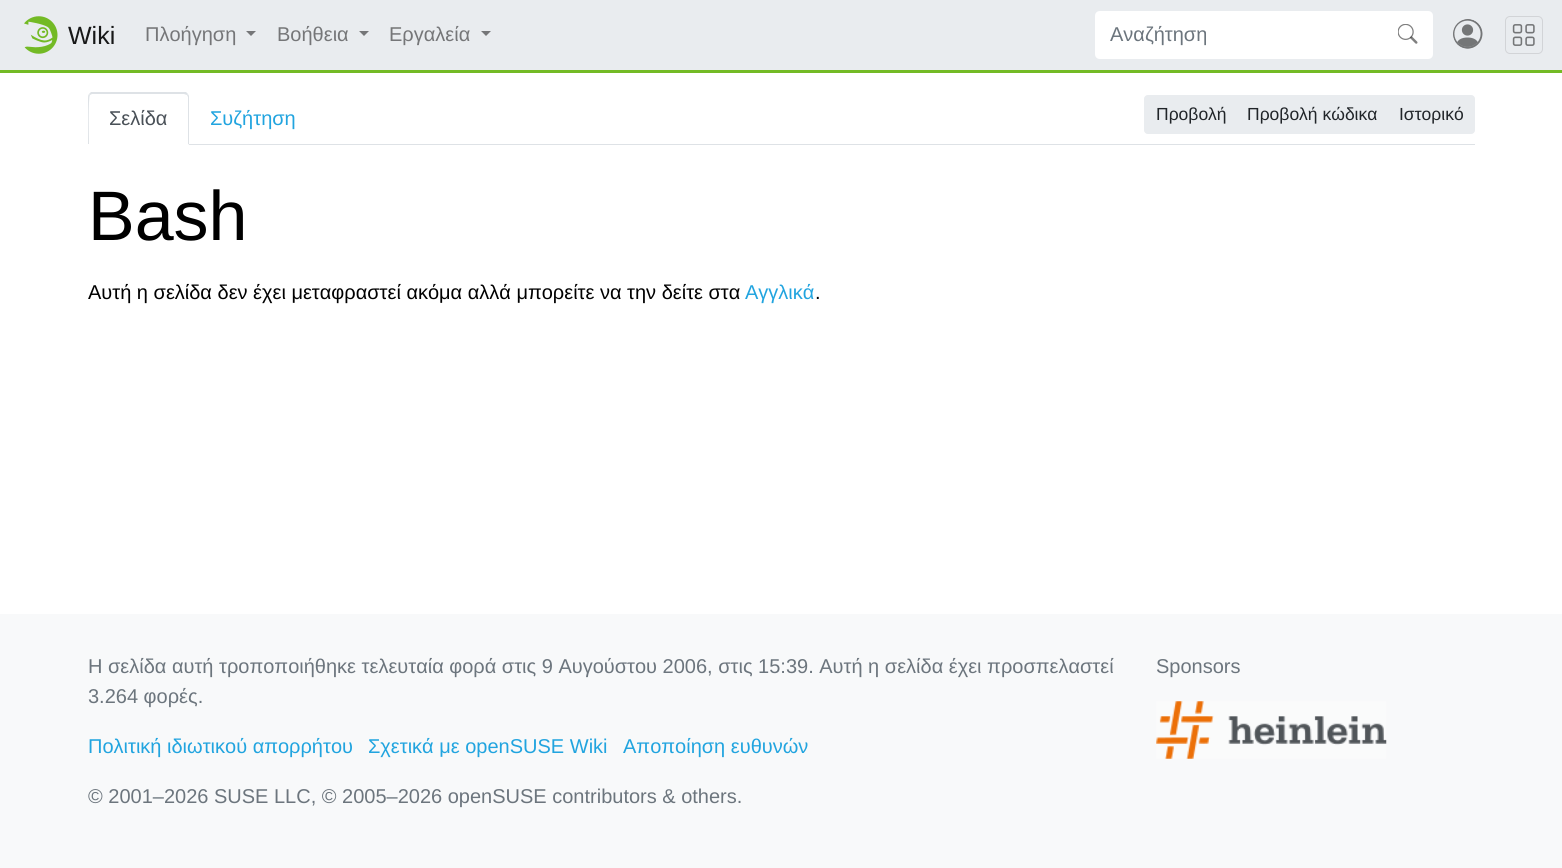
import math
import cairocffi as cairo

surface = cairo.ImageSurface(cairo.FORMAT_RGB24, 1562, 868)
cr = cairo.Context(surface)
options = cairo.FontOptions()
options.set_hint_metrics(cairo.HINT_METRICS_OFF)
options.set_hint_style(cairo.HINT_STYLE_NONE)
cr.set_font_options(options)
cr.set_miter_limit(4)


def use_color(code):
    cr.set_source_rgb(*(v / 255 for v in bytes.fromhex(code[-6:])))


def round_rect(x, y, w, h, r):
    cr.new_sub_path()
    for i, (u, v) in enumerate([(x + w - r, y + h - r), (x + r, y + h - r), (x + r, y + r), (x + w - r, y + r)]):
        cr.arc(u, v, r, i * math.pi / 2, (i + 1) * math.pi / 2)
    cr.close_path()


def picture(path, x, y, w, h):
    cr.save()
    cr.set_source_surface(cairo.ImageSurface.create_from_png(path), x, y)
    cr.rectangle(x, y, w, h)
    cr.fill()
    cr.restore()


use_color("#ffffff")
cr.paint()
use_color("#e9ecef")
cr.rectangle(0, 0, 1562, 70)
cr.fill()
use_color("#73ba25")
cr.rectangle(0, 70, 1562, 3)
cr.fill()
picture("img1.png", 24, 16, 34, 38)
cr.select_font_face("Liberation Sans")
cr.set_font_size(25)
use_color("#171818")
cr.move_to(68, 44)
cr.show_text("Wiki")
cr.set_font_size(20)
use_color("#757678")
cr.move_to(145, 41)
cr.show_text("Πλοήγηση")
cr.new_path()
cr.move_to(246, 31)
cr.line_to(256, 31)
cr.line_to(251, 36)
cr.close_path()
cr.fill()
cr.move_to(277, 41)
cr.show_text("Βοήθεια")
cr.new_path()
cr.move_to(359, 31)
cr.line_to(369, 31)
cr.line_to(364, 36)
cr.close_path()
cr.fill()
cr.move_to(389, 41)
cr.show_text("Εργαλεία")
cr.new_path()
cr.move_to(481, 31)
cr.line_to(491, 31)
cr.line_to(486, 36)
cr.close_path()
cr.fill()
use_color("#ffffff")
cr.new_path()
cr.move_to(1100, 11)
cr.line_to(1384, 11)
cr.line_to(1384, 59)
cr.line_to(1100, 59)
cr.curve_to(1097, 59, 1095, 57, 1095, 54)
cr.line_to(1095, 16)
cr.curve_to(1095, 13, 1097, 11, 1100, 11)
cr.close_path()
cr.fill()
use_color("#6c757d")
cr.move_to(1110, 41)
cr.show_text("Αναζήτηση")
use_color("#ffffff")
cr.new_path()
cr.move_to(1383, 11)
cr.line_to(1428, 11)
cr.curve_to(1431, 11, 1433, 13, 1433, 16)
cr.line_to(1433, 54)
cr.curve_to(1433, 57, 1431, 59, 1428, 59)
cr.line_to(1383, 59)
cr.close_path()
cr.fill()
picture("img2.png", 1398, 24, 20, 20)
picture("img3.png", 1453, 19, 30, 30)
round_rect(1505.5, 16.5, 37, 37, 4.5)
use_color("#d2d4d7")
cr.set_line_width(1)
cr.stroke()
picture("img4.png", 1512, 24, 23, 22)
use_color("#dee2e6")
cr.rectangle(189, 144, 1286, 1)
cr.fill()
cr.new_path()
cr.move_to(92, 94)
cr.line_to(90, 95)
cr.line_to(89, 94)
cr.line_to(91, 92)
cr.line_to(186, 92)
cr.line_to(188, 94)
cr.line_to(187, 95)
cr.line_to(184, 94)
cr.close_path()
cr.fill()
cr.new_path()
cr.move_to(189, 96)
cr.line_to(189, 145)
cr.line_to(188, 144)
cr.line_to(188, 97)
cr.line_to(187, 95)
cr.line_to(188, 94)
cr.close_path()
cr.fill()
use_color("#ffffff")
cr.new_path()
cr.move_to(189, 145)
cr.line_to(188, 144)
cr.line_to(89, 144)
cr.line_to(88, 145)
cr.close_path()
cr.fill()
use_color("#dee2e6")
cr.new_path()
cr.move_to(88, 144)
cr.line_to(88, 98)
cr.curve_to(88, 97, 88, 95, 89, 94)
cr.line_to(90, 95)
cr.curve_to(88, 97, 89, 138, 89, 144)
cr.close_path()
cr.fill()
use_color("#495057")
cr.move_to(109, 125)
cr.show_text("Σελίδα")
use_color("#21a4df")
cr.move_to(210, 125)
cr.show_text("Συζήτηση")
use_color("#e9ecef")
cr.new_path()
cr.move_to(1148, 95.5)
cr.line_to(1237.5, 95.5)
cr.line_to(1237.5, 133.5)
cr.line_to(1148, 133.5)
cr.curve_to(1146, 133.5, 1144.5, 132, 1144.5, 130)
cr.line_to(1144.5, 99)
cr.curve_to(1144.5, 97, 1146, 95.5, 1148, 95.5)
cr.close_path()
cr.fill_preserve()
cr.stroke()
cr.set_font_size(17.5)
use_color("#212529")
cr.move_to(1156, 120)
cr.show_text("Προβολή")
use_color("#e9ecef")
cr.rectangle(1238, 95, 150, 39)
cr.fill()
use_color("#212529")
cr.move_to(1247, 120)
cr.show_text("Προβολή κώδικα")
use_color("#e9ecef")
cr.new_path()
cr.move_to(1388.5, 95.5)
cr.line_to(1471, 95.5)
cr.curve_to(1473, 95.5, 1474.5, 97, 1474.5, 99)
cr.line_to(1474.5, 130)
cr.curve_to(1474.5, 132, 1473, 133.5, 1471, 133.5)
cr.line_to(1388.5, 133.5)
cr.close_path()
cr.fill_preserve()
cr.stroke()
use_color("#212529")
cr.move_to(1399, 120)
cr.show_text("Ιστορικό")
cr.set_font_size(70)
use_color("#000000")
cr.move_to(88, 240)
cr.show_text("Bash")
cr.set_font_size(20)
cr.move_to(88, 299)
cr.show_text("Αυτή η σελίδα δεν έχει μεταφραστεί ακόμα αλλά μπορείτε να την δείτε στα")
use_color("#21a4df")
cr.move_to(745, 299)
cr.show_text("Αγγλικά")
use_color("#000000")
cr.move_to(815, 299)
cr.show_text(".")
use_color("#f8f9fa")
cr.rectangle(0, 614, 1562, 254)
cr.fill()
use_color("#6c757d")
cr.move_to(88, 673)
cr.show_text("Η σελίδα αυτή τροποποιήθηκε τελευταία φορά στις 9 Αυγούστου 2006, στις 15:39. Αυτή η σελίδα έχει προσπελαστεί")
cr.move_to(88, 703)
cr.show_text("3.264 φορές.")
use_color("#21a4df")
cr.move_to(88, 753)
cr.show_text("Πολιτική ιδιωτικού απορρήτου")
cr.move_to(368, 753)
cr.show_text("Σχετικά με openSUSE Wiki")
cr.move_to(623, 753)
cr.show_text("Αποποίηση ευθυνών")
use_color("#6c757d")
cr.move_to(88, 803)
cr.show_text("© 2001–2026 SUSE LLC, © 2005–2026 openSUSE contributors & others.")
cr.move_to(1156, 673)
cr.show_text("Sponsors")
picture("img5.png", 1156, 701, 231, 58)
surface.write_to_png("result.png")
